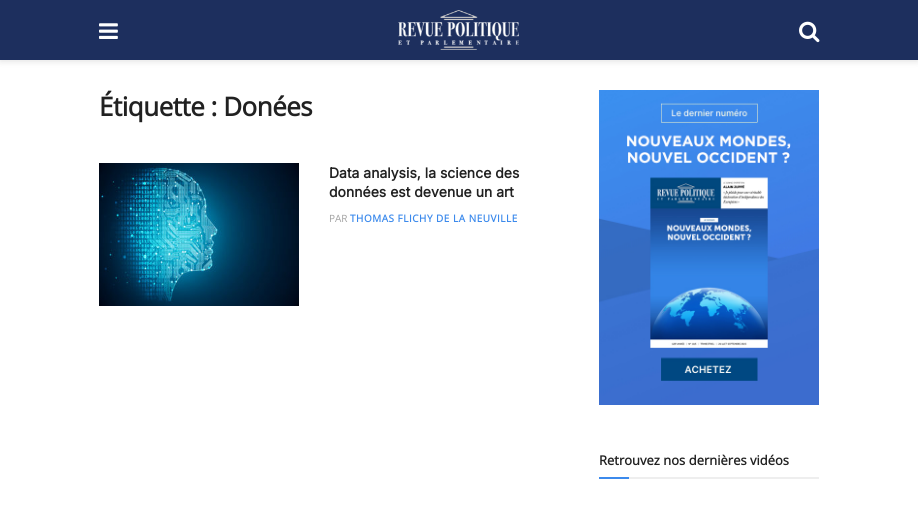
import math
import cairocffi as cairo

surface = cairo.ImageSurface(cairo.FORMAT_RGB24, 918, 530)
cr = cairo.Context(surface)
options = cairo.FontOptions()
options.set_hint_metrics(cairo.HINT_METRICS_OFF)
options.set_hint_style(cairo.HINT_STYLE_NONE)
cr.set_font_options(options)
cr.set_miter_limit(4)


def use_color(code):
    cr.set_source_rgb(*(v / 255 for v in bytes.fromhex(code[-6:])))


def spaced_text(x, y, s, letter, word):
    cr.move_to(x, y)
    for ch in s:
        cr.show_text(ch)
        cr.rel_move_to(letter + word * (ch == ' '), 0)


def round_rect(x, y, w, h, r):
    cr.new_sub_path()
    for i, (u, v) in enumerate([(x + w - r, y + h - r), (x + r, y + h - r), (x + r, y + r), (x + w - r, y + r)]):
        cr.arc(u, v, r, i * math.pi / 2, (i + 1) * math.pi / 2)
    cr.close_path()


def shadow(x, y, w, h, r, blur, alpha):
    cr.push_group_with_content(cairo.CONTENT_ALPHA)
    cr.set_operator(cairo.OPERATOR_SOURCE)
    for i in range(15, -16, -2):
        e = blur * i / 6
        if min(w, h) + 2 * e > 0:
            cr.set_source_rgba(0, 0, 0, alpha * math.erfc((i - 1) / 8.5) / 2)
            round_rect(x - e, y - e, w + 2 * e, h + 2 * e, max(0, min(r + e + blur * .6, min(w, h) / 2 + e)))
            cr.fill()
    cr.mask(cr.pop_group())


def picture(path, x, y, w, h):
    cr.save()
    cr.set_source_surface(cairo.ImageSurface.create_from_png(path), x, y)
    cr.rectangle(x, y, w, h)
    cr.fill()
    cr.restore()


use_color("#ffffff")
cr.paint()
use_color("#000000")
shadow(0, 2, 918, 60, 0, 3, 0.1)
use_color("#1d2f5e")
cr.rectangle(0, 0, 918, 60)
cr.fill()
picture("img1.png", 99, 23, 19, 16)
picture("img2.png", 398, 10, 121, 40)
picture("img3.png", 799, 21, 21, 22)
cr.select_font_face("Open Sans", cairo.FONT_SLANT_NORMAL, cairo.FONT_WEIGHT_BOLD)
cr.set_font_size(26)
use_color("#212121")
spaced_text(99, 116, "Étiquette : Donées", -0.5, 0)
picture("img4.png", 99, 163, 200, 143)
cr.select_font_face("Inter", cairo.FONT_SLANT_NORMAL, cairo.FONT_WEIGHT_BOLD)
cr.set_font_size(14)
cr.move_to(329, 178)
cr.show_text("Data analysis, la science des")
cr.move_to(329, 197)
cr.show_text("données est devenue un art")
cr.select_font_face("Open Sans")
cr.set_font_size(10)
use_color("#a0a0a0")
cr.move_to(329, 222)
cr.show_text("PAR")
cr.select_font_face("Open Sans", cairo.FONT_SLANT_NORMAL, cairo.FONT_WEIGHT_BOLD)
use_color("#3c8aec")
spaced_text(350, 222, "THOMAS FLICHY DE LA NEUVILLE", 0.5, 0)
picture("img5.png", 599, 90, 220, 315)
use_color("#eeeeee")
cr.rectangle(629, 477, 190, 2)
cr.fill()
cr.set_font_size(13)
use_color("#212121")
cr.move_to(599, 465)
cr.show_text("Retrouvez nos dernières vidéos")
use_color("#3c8aec")
cr.rectangle(599, 477, 30, 2)
cr.fill()
surface.write_to_png("result.png")
